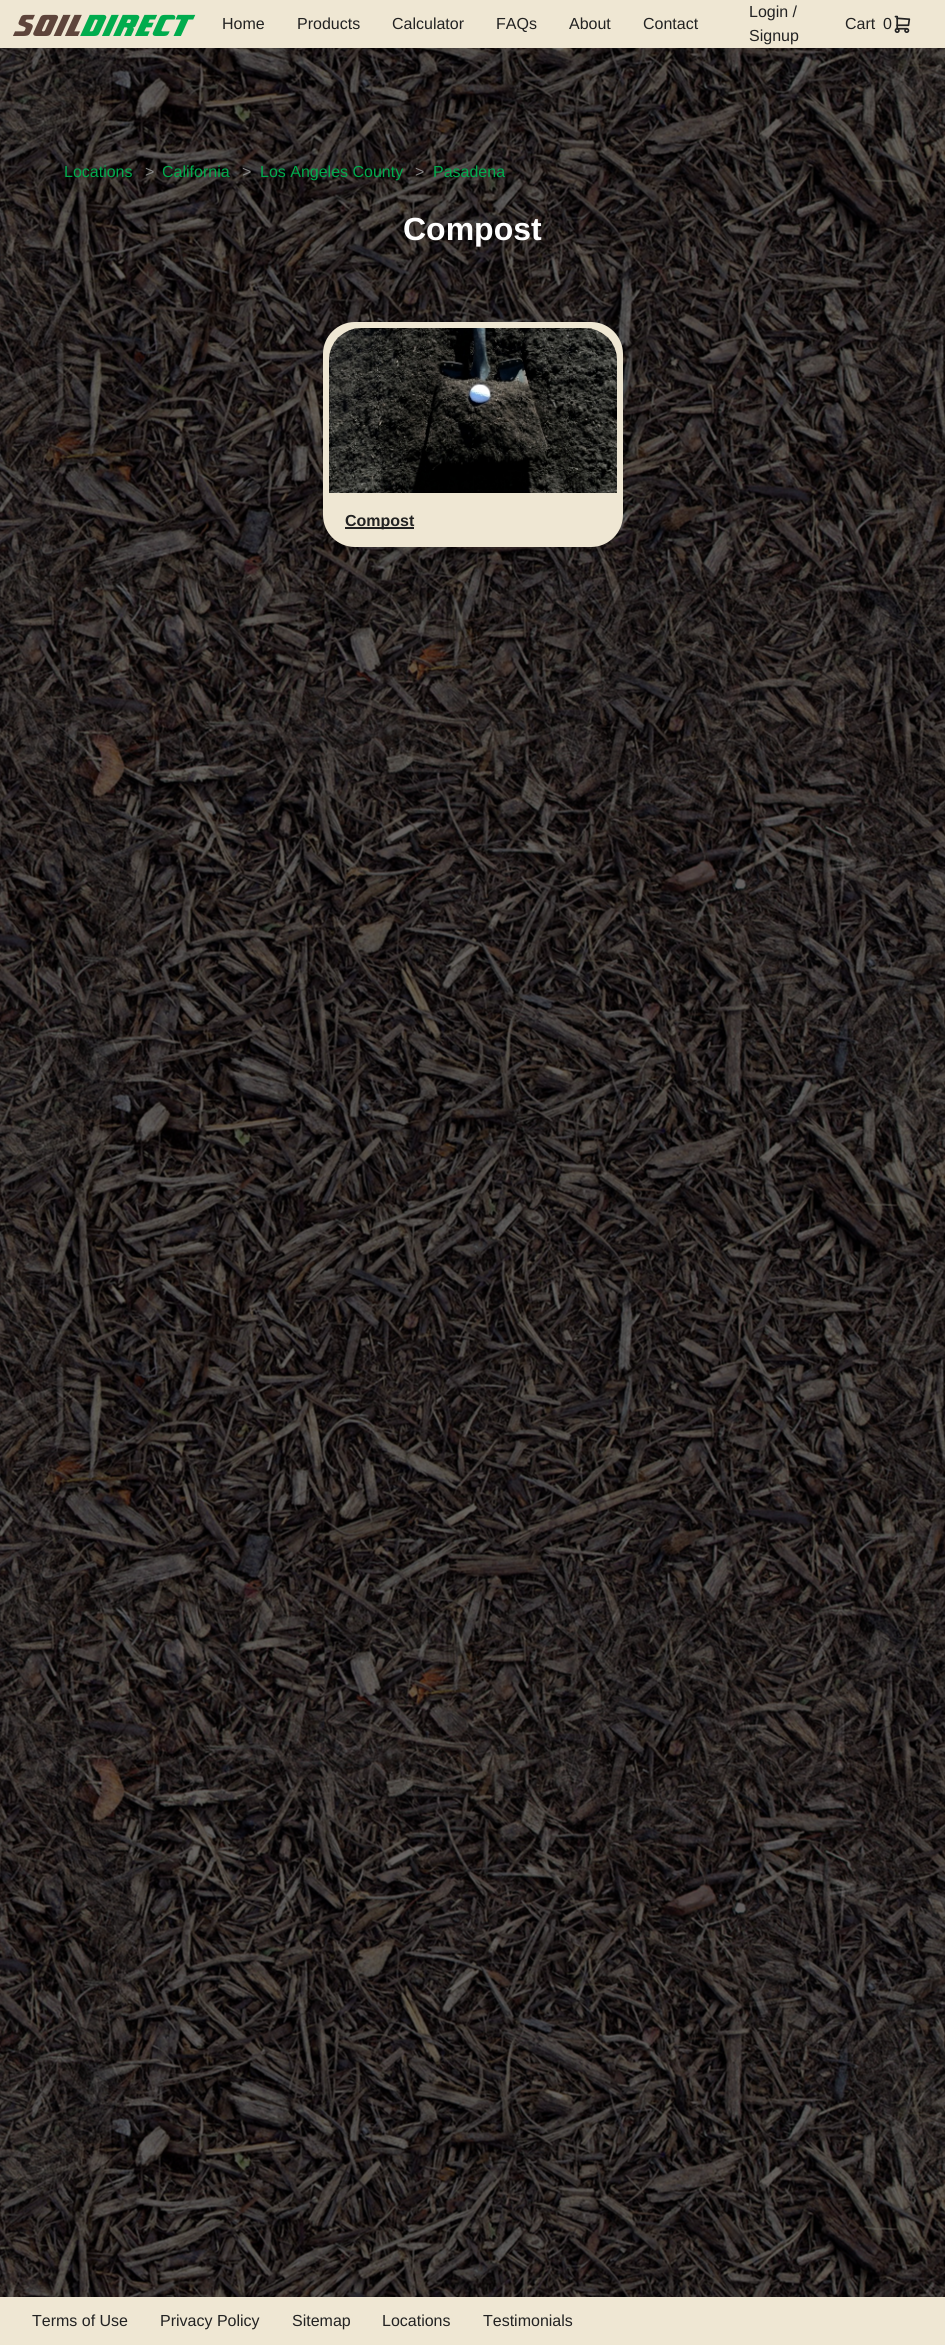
import math
import cairocffi as cairo

surface = cairo.ImageSurface(cairo.FORMAT_RGB24, 945, 2345)
cr = cairo.Context(surface)
options = cairo.FontOptions()
options.set_hint_metrics(cairo.HINT_METRICS_OFF)
options.set_hint_style(cairo.HINT_STYLE_NONE)
cr.set_font_options(options)
cr.set_miter_limit(4)


def use_color(code):
    cr.set_source_rgb(*(v / 255 for v in bytes.fromhex(code[-6:])))


def round_rect(x, y, w, h, r):
    cr.new_sub_path()
    for i, (u, v) in enumerate([(x + w - r, y + h - r), (x + r, y + h - r), (x + r, y + r), (x + w - r, y + r)]):
        cr.arc(u, v, r, i * math.pi / 2, (i + 1) * math.pi / 2)
    cr.close_path()


def picture(path, x, y, w, h):
    cr.save()
    cr.set_source_surface(cairo.ImageSurface.create_from_png(path), x, y)
    cr.rectangle(x, y, w, h)
    cr.fill()
    cr.restore()


use_color("#efe7d3")
cr.paint()
cr.select_font_face("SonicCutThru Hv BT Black")
cr.set_font_size(32)
use_color("#5e453b")
cr.move_to(16, 36)
cr.show_text("Soil")
use_color("#00ac4d")
cr.move_to(83, 36)
cr.show_text("Direct")
cr.select_font_face("Liberation Sans")
cr.set_font_size(16)
use_color("#222222")
cr.move_to(222, 29)
cr.show_text("Home")
cr.move_to(297, 29)
cr.show_text("Products")
cr.move_to(392, 29)
cr.show_text("Calculator")
cr.move_to(496, 29)
cr.show_text("FAQs")
cr.move_to(569, 29)
cr.show_text("About")
cr.move_to(643, 29)
cr.show_text("Contact")
cr.move_to(749, 17)
cr.show_text("Login /")
cr.move_to(749, 41)
cr.show_text("Signup")
cr.move_to(845, 29)
cr.show_text("Cart")
cr.move_to(883, 29)
cr.show_text("0")
picture("img1.png", 894, 15, 17, 18)
picture("img2.png", 0, 48, 945, 2249)
use_color("#00ac4d")
cr.move_to(64, 177)
cr.show_text("Locations")
use_color("#888888")
cr.move_to(145, 177)
cr.show_text(">")
use_color("#00ac4d")
cr.move_to(162, 177)
cr.show_text("California")
use_color("#888888")
cr.move_to(242, 177)
cr.show_text(">")
use_color("#00ac4d")
cr.move_to(260, 177)
cr.show_text("Los Angeles County")
use_color("#888888")
cr.move_to(415, 177)
cr.show_text(">")
use_color("#00ac4d")
cr.move_to(433, 177)
cr.show_text("Pasadena")
cr.select_font_face("Liberation Sans", cairo.FONT_SLANT_NORMAL, cairo.FONT_WEIGHT_BOLD)
cr.set_font_size(32)
use_color("#ffffff")
cr.move_to(403, 240)
cr.show_text("Compost")
use_color("#efe7d3")
round_rect(326, 325, 294, 219, 29)
cr.fill_preserve()
cr.set_line_width(6)
cr.stroke()
picture("img3.png", 329, 328, 288, 165)
use_color("#222222")
cr.rectangle(345, 527, 69, 2)
cr.fill()
cr.set_font_size(16)
cr.move_to(345, 526)
cr.show_text("Compost")
cr.select_font_face("Liberation Sans")
cr.move_to(32, 2326)
cr.show_text("Terms of Use")
cr.move_to(160, 2326)
cr.show_text("Privacy Policy")
cr.move_to(292, 2326)
cr.show_text("Sitemap")
cr.move_to(382, 2326)
cr.show_text("Locations")
cr.move_to(483, 2326)
cr.show_text("Testimonials")
surface.write_to_png("result.png")
